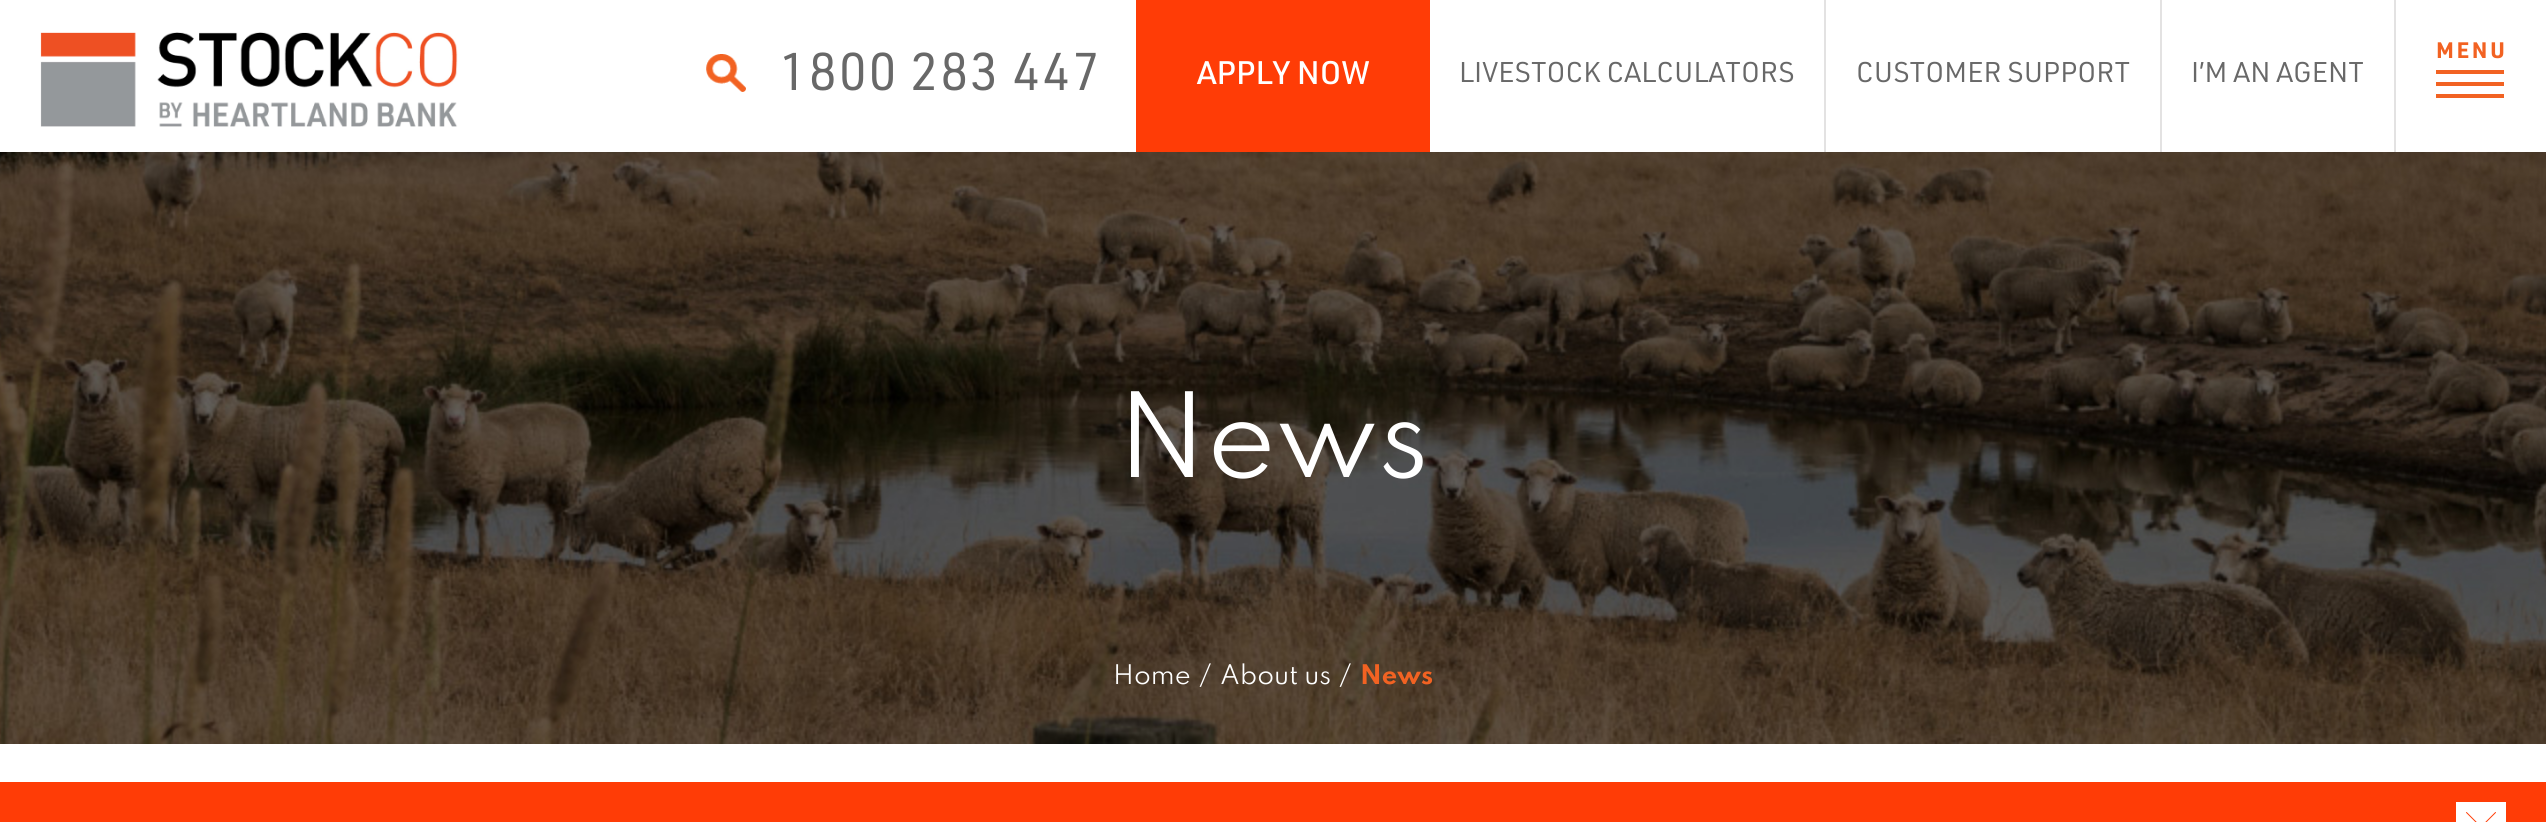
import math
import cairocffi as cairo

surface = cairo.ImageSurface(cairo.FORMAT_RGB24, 2546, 822)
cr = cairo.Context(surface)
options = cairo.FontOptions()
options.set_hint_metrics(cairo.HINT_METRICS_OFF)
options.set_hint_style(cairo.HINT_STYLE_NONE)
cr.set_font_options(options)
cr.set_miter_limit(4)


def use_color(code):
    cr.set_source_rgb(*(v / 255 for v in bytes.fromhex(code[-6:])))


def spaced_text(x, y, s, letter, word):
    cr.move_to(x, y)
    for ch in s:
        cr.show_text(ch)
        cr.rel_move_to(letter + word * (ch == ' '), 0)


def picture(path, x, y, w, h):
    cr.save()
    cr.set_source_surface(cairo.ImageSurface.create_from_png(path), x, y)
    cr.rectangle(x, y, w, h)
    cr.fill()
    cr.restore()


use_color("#ffffff")
cr.paint()
picture("img1.png", 40, 32, 418, 95)
picture("img2.png", 706, 54, 40, 38)
cr.select_font_face("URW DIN")
cr.set_font_size(52)
use_color("#686868")
spaced_text(779, 90, "1800 283 447", 1.75, 0)
use_color("#ff3c06")
cr.rectangle(1136, 0, 294, 152)
cr.fill()
cr.select_font_face("URW DIN Medium")
cr.set_font_size(32)
use_color("#ffffff")
spaced_text(1197, 84, "APPLY NOW", 0.1, 0)
use_color("#e3e2e2")
cr.rectangle(1824, 0, 2, 152)
cr.fill()
cr.select_font_face("URW DIN")
cr.set_font_size(28)
use_color("#686868")
spaced_text(1459, 82, "LIVESTOCK CALCULATORS", 0.1, 0)
use_color("#e3e2e2")
cr.rectangle(2160, 0, 2, 152)
cr.fill()
use_color("#686868")
spaced_text(1856, 82, "CUSTOMER SUPPORT", 0.1, 0)
use_color("#e3e2e2")
cr.rectangle(2394, 0, 2, 152)
cr.fill()
use_color("#686868")
spaced_text(2191, 82, "I’M AN AGENT", 0.1, 0)
cr.select_font_face("URW DIN", cairo.FONT_SLANT_NORMAL, cairo.FONT_WEIGHT_BOLD)
cr.set_font_size(22)
use_color("#f26222")
spaced_text(2436, 58, "MENU", 2.5, 0)
cr.rectangle(2436, 70, 68, 4)
cr.fill()
cr.rectangle(2436, 82, 68, 4)
cr.fill()
cr.rectangle(2436, 94, 68, 4)
cr.fill()
picture("img3.png", 0, 152, 2546, 592)
cr.select_font_face("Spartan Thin")
cr.set_font_size(104)
use_color("#ffffff")
cr.move_to(1117, 477)
cr.show_text("News")
cr.set_font_size(24)
cr.move_to(1113, 684)
cr.show_text("Home")
cr.move_to(1199, 684)
cr.show_text("/")
cr.move_to(1220, 684)
cr.show_text("About us")
cr.move_to(1339, 684)
cr.show_text("/")
cr.select_font_face("Spartan Thin", cairo.FONT_SLANT_NORMAL, cairo.FONT_WEIGHT_BOLD)
use_color("#f26222")
cr.move_to(1360, 684)
cr.show_text("News")
use_color("#ff3c06")
cr.rectangle(0, 782, 2546, 40)
cr.fill()
use_color("#ffffff")
cr.rectangle(2456, 802, 50, 20)
cr.fill()
picture("img4.png", 2466, 812, 30, 10)
surface.write_to_png("result.png")
